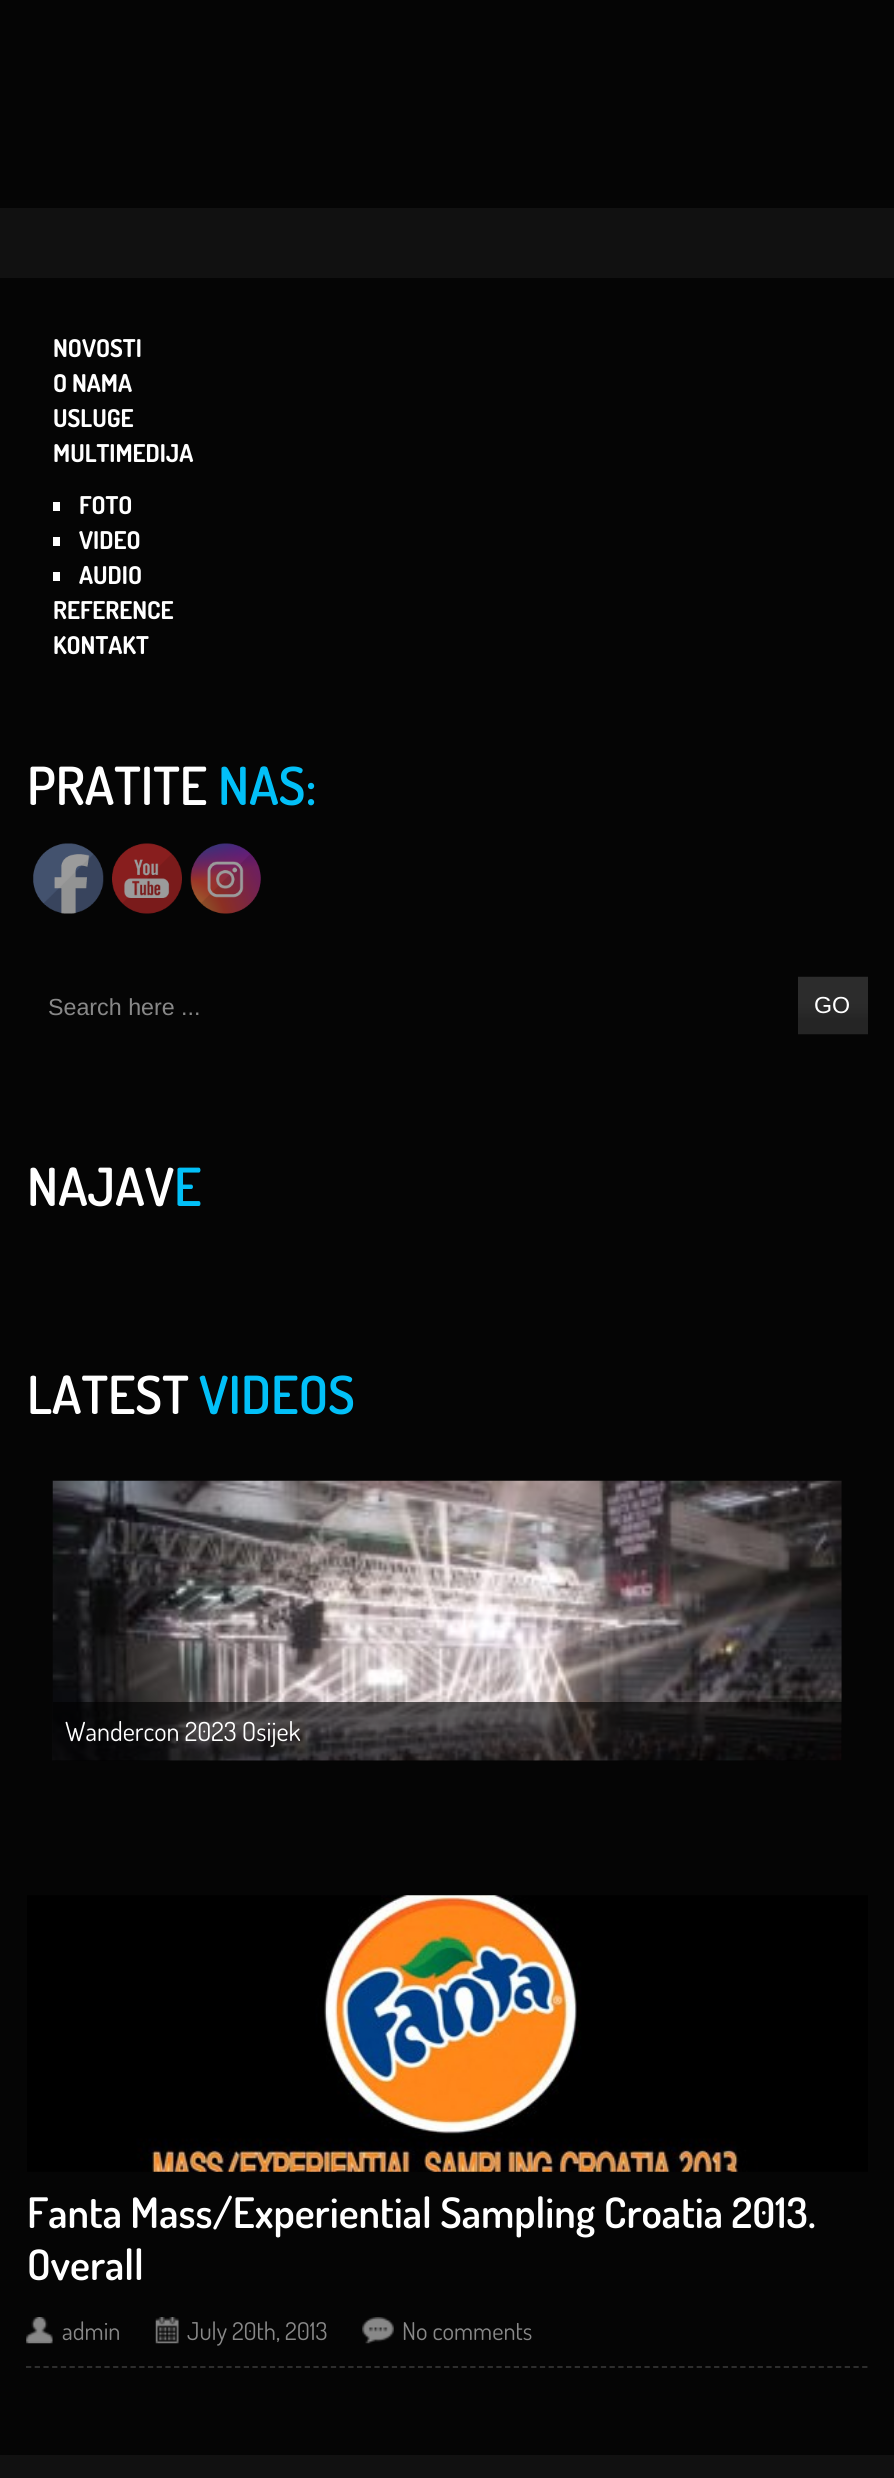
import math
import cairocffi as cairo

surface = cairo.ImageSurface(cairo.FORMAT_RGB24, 894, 2478)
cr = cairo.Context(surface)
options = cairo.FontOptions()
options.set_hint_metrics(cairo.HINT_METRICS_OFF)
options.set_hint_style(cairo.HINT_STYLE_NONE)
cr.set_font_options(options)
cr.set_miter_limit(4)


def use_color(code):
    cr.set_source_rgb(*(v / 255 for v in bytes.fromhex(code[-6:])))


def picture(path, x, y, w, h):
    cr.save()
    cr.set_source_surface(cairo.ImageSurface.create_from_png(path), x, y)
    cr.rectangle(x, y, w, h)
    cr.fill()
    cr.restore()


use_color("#111111")
cr.paint()
use_color("#050505")
cr.rectangle(0, 0, 894, 208)
cr.fill()
cr.rectangle(0, 278, 894, 2177)
cr.fill()
cr.select_font_face("Dosis", cairo.FONT_SLANT_NORMAL, cairo.FONT_WEIGHT_BOLD)
cr.set_font_size(24.5)
use_color("#ffffff")
cr.move_to(53, 357)
cr.show_text("NOVOSTI")
cr.move_to(53, 392)
cr.show_text("O NAMA")
cr.move_to(53, 427)
cr.show_text("USLUGE")
cr.move_to(53, 462)
cr.show_text("MULTIMEDIJA")
cr.rectangle(53, 502, 7, 9)
cr.fill()
cr.move_to(79, 514)
cr.show_text("FOTO")
cr.rectangle(53, 537, 7, 9)
cr.fill()
cr.move_to(79, 549)
cr.show_text("VIDEO")
cr.rectangle(53, 572, 7, 9)
cr.fill()
cr.move_to(79, 584)
cr.show_text("AUDIO")
cr.move_to(53, 619)
cr.show_text("REFERENCE")
cr.move_to(53, 654)
cr.show_text("KONTAKT")
cr.select_font_face("Dosis SemiBold")
cr.set_font_size(52.5)
cr.move_to(27, 805)
cr.show_text("PRATITE")
use_color("#02c0f8")
cr.move_to(218, 805)
cr.show_text("NAS:")
picture("img1.png", 33, 843, 71, 71)
picture("img2.png", 112, 843, 70, 71)
picture("img3.png", 190, 843, 71, 71)
cr.select_font_face("Liberation Sans")
cr.set_font_size(23.25)
use_color("#888888")
cr.move_to(48, 1015)
cr.show_text("Search here ...")
picture("img4.png", 798, 976, 70, 59)
use_color("#ffffff")
cr.move_to(814, 1013)
cr.show_text("GO")
cr.select_font_face("Dosis SemiBold")
cr.set_font_size(52.5)
cr.move_to(27, 1206)
cr.show_text("NAJAV")
use_color("#02c0f8")
cr.move_to(174, 1206)
cr.show_text("E")
use_color("#ffffff")
cr.move_to(27, 1414)
cr.show_text("LATEST")
use_color("#02c0f8")
cr.move_to(199, 1414)
cr.show_text("VIDEOS")
picture("img5.png", 52, 1480, 790, 281)
cr.set_source_rgba(0, 0, 0, 0.64)
cr.rectangle(53, 1702, 789, 59)
cr.fill()
cr.select_font_face("Dosis")
cr.set_font_size(26.25)
use_color("#ffffff")
cr.move_to(65, 1741)
cr.show_text("Wandercon 2023 Osijek")
picture("img6.png", 27, 1895, 841, 277)
cr.select_font_face("Dosis SemiBold")
cr.set_font_size(42)
cr.move_to(27, 2228)
cr.show_text("Fanta Mass/Experiential Sampling Croatia 2013.")
cr.move_to(27, 2280)
cr.show_text("Overall")
picture("img7.png", 26, 2317, 27, 27)
cr.select_font_face("Dosis")
cr.set_font_size(24.5)
use_color("#888888")
cr.move_to(62, 2340)
cr.show_text("admin")
picture("img8.png", 155, 2317, 24, 27)
cr.move_to(187, 2340)
cr.show_text("July 20th, 2013")
picture("img9.png", 362, 2317, 32, 27)
cr.move_to(402, 2340)
cr.show_text("No comments")
cr.new_path()
cr.move_to(26, 2367)
cr.line_to(868, 2367)
use_color("#333333")
cr.set_line_width(1.8)
cr.set_dash([5.25, 3.46])
cr.stroke()
surface.write_to_png("result.png")
